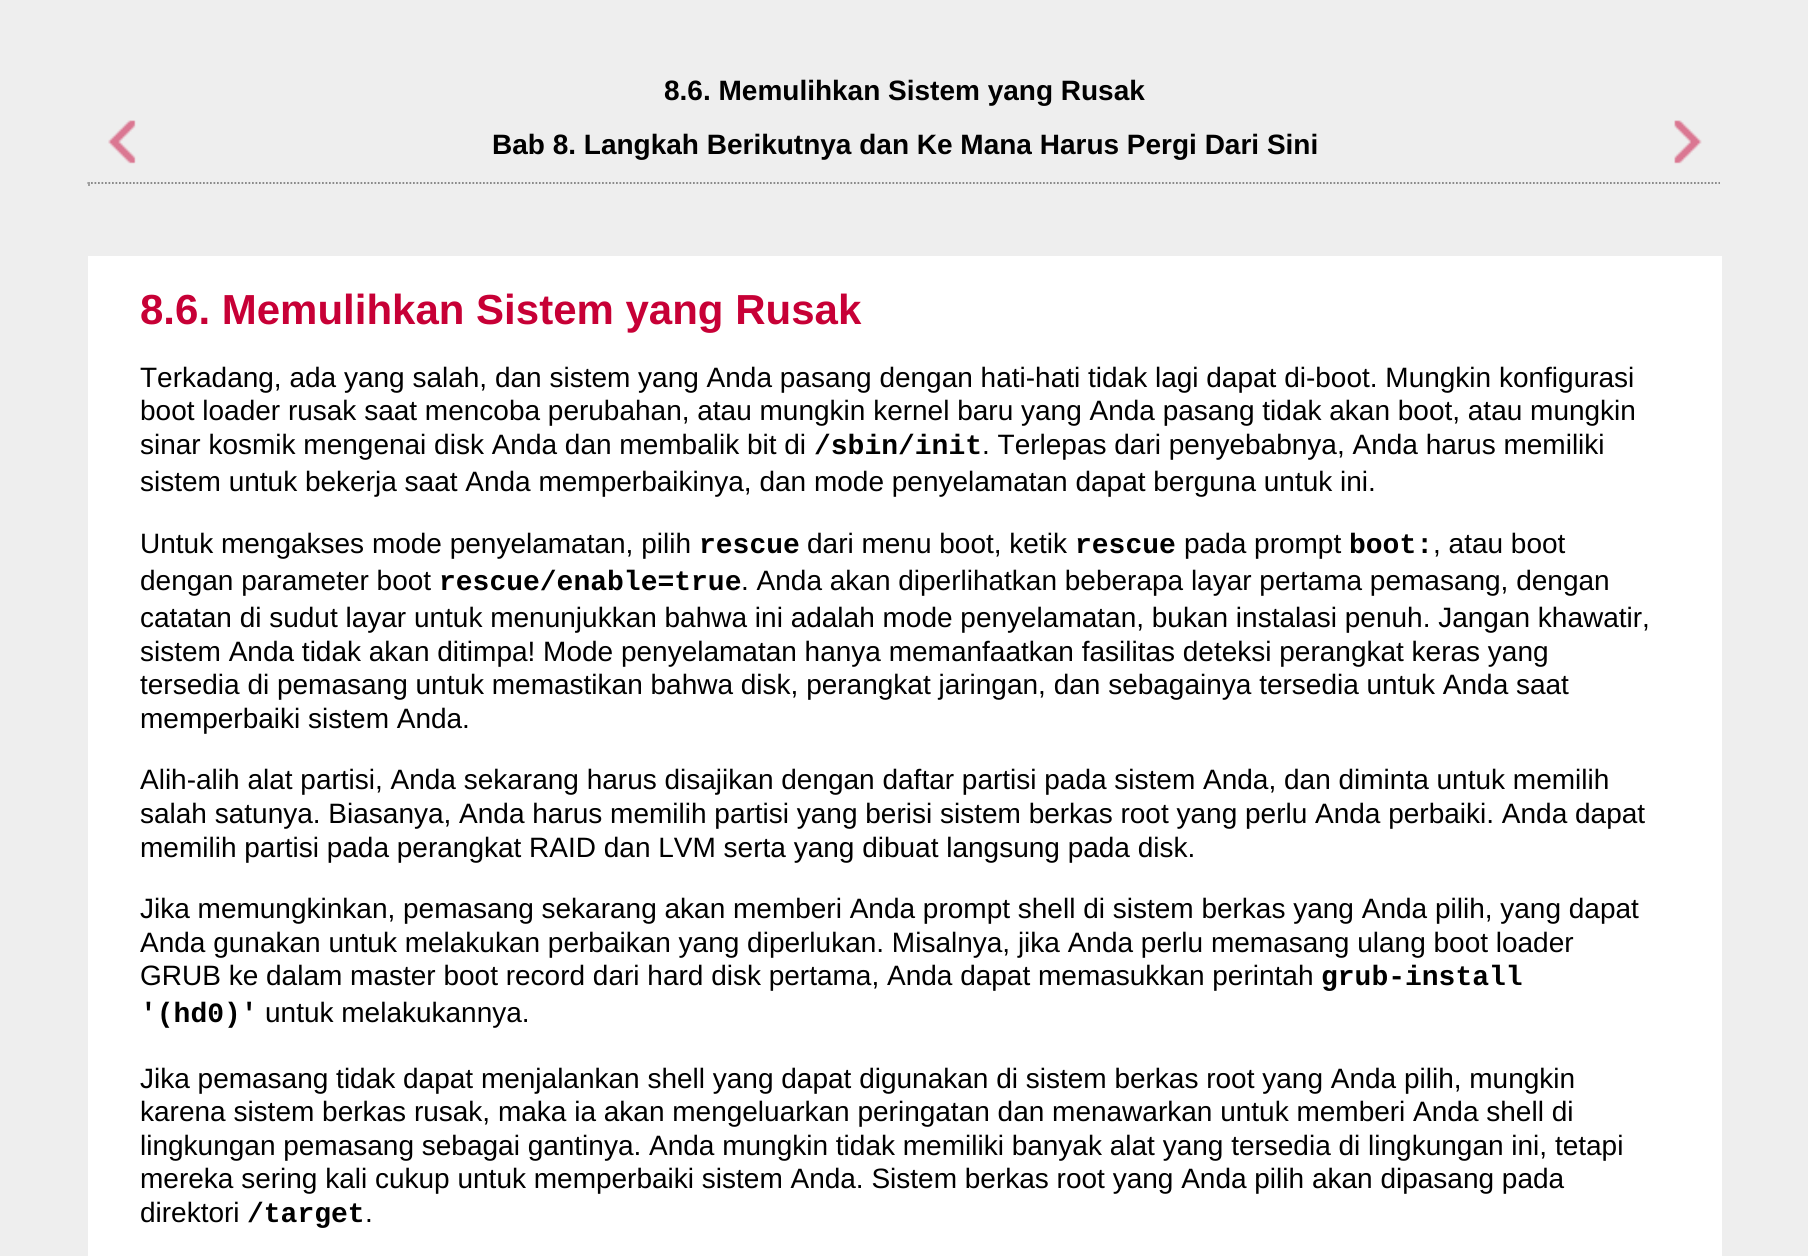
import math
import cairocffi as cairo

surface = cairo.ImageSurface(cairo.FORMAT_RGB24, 1808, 1256)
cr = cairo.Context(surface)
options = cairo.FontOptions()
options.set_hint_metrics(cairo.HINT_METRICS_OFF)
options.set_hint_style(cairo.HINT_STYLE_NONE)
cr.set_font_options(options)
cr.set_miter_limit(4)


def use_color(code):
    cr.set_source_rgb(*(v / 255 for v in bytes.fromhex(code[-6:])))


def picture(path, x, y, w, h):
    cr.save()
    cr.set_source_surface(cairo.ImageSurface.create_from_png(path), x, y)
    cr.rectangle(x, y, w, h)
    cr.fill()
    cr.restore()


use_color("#eeeeee")
cr.paint()
cr.select_font_face("Liberation Sans", cairo.FONT_SLANT_NORMAL, cairo.FONT_WEIGHT_BOLD)
cr.set_font_size(28)
use_color("#000000")
cr.move_to(664, 100)
cr.show_text("8.6. Memulihkan Sistem yang Rusak")
picture("img1.png", 108, 120, 28, 44)
cr.move_to(492, 154)
cr.show_text("Bab 8. Langkah Berikutnya dan Ke Mana Harus Pergi Dari Sini")
picture("img2.png", 1674, 120, 28, 44)
cr.new_path()
cr.move_to(87.5, 183)
cr.line_to(1722, 183)
use_color("#808080")
cr.set_line_width(1.8)
cr.set_dash([1.75, 1.75])
cr.stroke()
use_color("#eeeeee")
cr.rectangle(1720, 182, 1, 4)
cr.fill()
use_color("#9f9f9f")
cr.rectangle(88, 182, 2, 4)
cr.fill()
use_color("#ffffff")
cr.rectangle(88, 256, 1634, 1000)
cr.fill()
cr.set_font_size(42)
use_color("#c70036")
cr.move_to(140, 324)
cr.show_text("8.6. Memulihkan Sistem yang Rusak")
cr.select_font_face("Liberation Sans")
cr.set_font_size(28)
use_color("#000000")
cr.move_to(140, 387)
cr.show_text("Terkadang, ada yang salah, dan sistem yang Anda pasang dengan hati-hati tidak lagi dapat di-boot. Mungkin konfigurasi")
cr.move_to(140, 420)
cr.show_text("boot loader rusak saat mencoba perubahan, atau mungkin kernel baru yang Anda pasang tidak akan boot, atau mungkin")
cr.move_to(140, 454)
cr.show_text("sinar kosmik mengenai disk Anda dan membalik bit di")
cr.select_font_face("Liberation Mono", cairo.FONT_SLANT_NORMAL, cairo.FONT_WEIGHT_BOLD)
cr.move_to(814, 454)
cr.show_text("/sbin/init")
cr.select_font_face("Liberation Sans")
cr.move_to(982, 454)
cr.show_text(". Terlepas dari penyebabnya, Anda harus memiliki")
cr.move_to(140, 491)
cr.show_text("sistem untuk bekerja saat Anda memperbaikinya, dan mode penyelamatan dapat berguna untuk ini.")
cr.move_to(140, 553)
cr.show_text("Untuk mengakses mode penyelamatan, pilih")
cr.select_font_face("Liberation Mono", cairo.FONT_SLANT_NORMAL, cairo.FONT_WEIGHT_BOLD)
cr.move_to(699, 553)
cr.show_text("rescue")
cr.select_font_face("Liberation Sans")
cr.move_to(807, 553)
cr.show_text("dari menu boot, ketik")
cr.select_font_face("Liberation Mono", cairo.FONT_SLANT_NORMAL, cairo.FONT_WEIGHT_BOLD)
cr.move_to(1075, 553)
cr.show_text("rescue")
cr.select_font_face("Liberation Sans")
cr.move_to(1184, 553)
cr.show_text("pada prompt")
cr.select_font_face("Liberation Mono", cairo.FONT_SLANT_NORMAL, cairo.FONT_WEIGHT_BOLD)
cr.move_to(1349, 553)
cr.show_text("boot:")
cr.select_font_face("Liberation Sans")
cr.move_to(1433, 553)
cr.show_text(", atau boot")
cr.move_to(140, 590)
cr.show_text("dengan parameter boot")
cr.select_font_face("Liberation Mono", cairo.FONT_SLANT_NORMAL, cairo.FONT_WEIGHT_BOLD)
cr.move_to(439, 590)
cr.show_text("rescue/enable=true")
cr.select_font_face("Liberation Sans")
cr.move_to(741, 590)
cr.show_text(". Anda akan diperlihatkan beberapa layar pertama pemasang, dengan")
cr.move_to(140, 627)
cr.show_text("catatan di sudut layar untuk menunjukkan bahwa ini adalah mode penyelamatan, bukan instalasi penuh. Jangan khawatir,")
cr.move_to(140, 661)
cr.show_text("sistem Anda tidak akan ditimpa! Mode penyelamatan hanya memanfaatkan fasilitas deteksi perangkat keras yang")
cr.move_to(140, 694)
cr.show_text("tersedia di pemasang untuk memastikan bahwa disk, perangkat jaringan, dan sebagainya tersedia untuk Anda saat")
cr.move_to(140, 728)
cr.show_text("memperbaiki sistem Anda.")
cr.move_to(140, 789)
cr.show_text("Alih-alih alat partisi, Anda sekarang harus disajikan dengan daftar partisi pada sistem Anda, dan diminta untuk memilih")
cr.move_to(140, 823)
cr.show_text("salah satunya. Biasanya, Anda harus memilih partisi yang berisi sistem berkas root yang perlu Anda perbaiki. Anda dapat")
cr.move_to(140, 857)
cr.show_text("memilih partisi pada perangkat RAID dan LVM serta yang dibuat langsung pada disk.")
cr.move_to(140, 918)
cr.show_text("Jika memungkinkan, pemasang sekarang akan memberi Anda prompt shell di sistem berkas yang Anda pilih, yang dapat")
cr.move_to(140, 952)
cr.show_text("Anda gunakan untuk melakukan perbaikan yang diperlukan. Misalnya, jika Anda perlu memasang ulang boot loader")
cr.move_to(140, 985)
cr.show_text("GRUB ke dalam master boot record dari hard disk pertama, Anda dapat memasukkan perintah")
cr.select_font_face("Liberation Mono", cairo.FONT_SLANT_NORMAL, cairo.FONT_WEIGHT_BOLD)
cr.move_to(1321, 985)
cr.show_text("grub-install")
cr.move_to(140, 1022)
cr.show_text("'(hd0)'")
cr.select_font_face("Liberation Sans")
cr.move_to(265, 1022)
cr.show_text("untuk melakukannya.")
cr.move_to(140, 1088)
cr.show_text("Jika pemasang tidak dapat menjalankan shell yang dapat digunakan di sistem berkas root yang Anda pilih, mungkin")
cr.move_to(140, 1121)
cr.show_text("karena sistem berkas rusak, maka ia akan mengeluarkan peringatan dan menawarkan untuk memberi Anda shell di")
cr.move_to(140, 1155)
cr.show_text("lingkungan pemasang sebagai gantinya. Anda mungkin tidak memiliki banyak alat yang tersedia di lingkungan ini, tetapi")
cr.move_to(140, 1188)
cr.show_text("mereka sering kali cukup untuk memperbaiki sistem Anda. Sistem berkas root yang Anda pilih akan dipasang pada")
cr.move_to(140, 1222)
cr.show_text("direktori")
cr.select_font_face("Liberation Mono", cairo.FONT_SLANT_NORMAL, cairo.FONT_WEIGHT_BOLD)
cr.move_to(247, 1222)
cr.show_text("/target")
cr.select_font_face("Liberation Sans")
cr.move_to(365, 1222)
cr.show_text(".")
surface.write_to_png("result.png")
